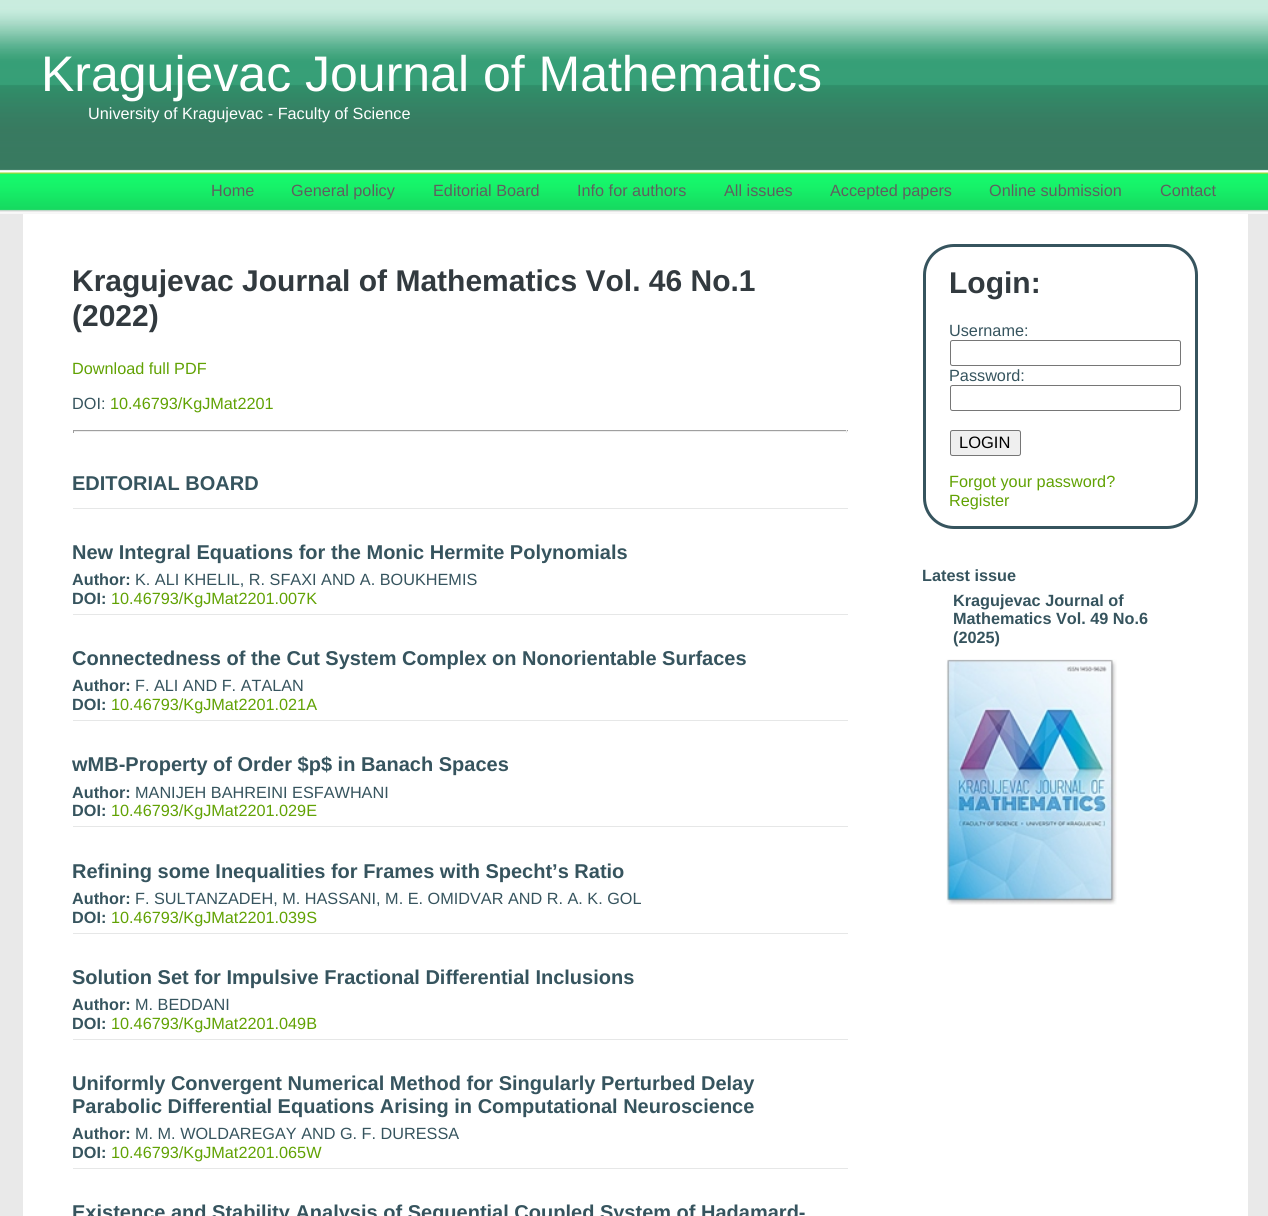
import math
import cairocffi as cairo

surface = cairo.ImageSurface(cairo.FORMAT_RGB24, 1268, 1216)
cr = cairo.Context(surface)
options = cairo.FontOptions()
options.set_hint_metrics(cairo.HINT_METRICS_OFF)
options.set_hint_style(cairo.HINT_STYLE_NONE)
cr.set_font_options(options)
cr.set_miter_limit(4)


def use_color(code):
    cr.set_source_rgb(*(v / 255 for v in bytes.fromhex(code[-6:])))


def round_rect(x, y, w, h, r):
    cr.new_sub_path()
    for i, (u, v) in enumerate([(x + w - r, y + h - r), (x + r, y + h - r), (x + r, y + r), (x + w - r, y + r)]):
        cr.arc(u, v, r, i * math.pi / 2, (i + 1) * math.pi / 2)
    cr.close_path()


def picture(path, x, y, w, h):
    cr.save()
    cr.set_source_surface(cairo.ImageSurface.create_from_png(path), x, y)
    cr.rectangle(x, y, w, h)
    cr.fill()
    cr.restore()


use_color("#e9e9e9")
cr.paint()
picture("img1.png", 0, 0, 1268, 214)
cr.select_font_face("Liberation Sans")
cr.set_font_size(50)
use_color("#ffffff")
cr.move_to(41, 91)
cr.show_text("Kragujevac Journal of Mathematics")
cr.set_font_size(16.25)
cr.move_to(88, 119)
cr.show_text("University of Kragujevac - Faculty of Science")
use_color("#5f5f5f")
cr.move_to(211, 196)
cr.show_text("Home")
cr.move_to(291, 196)
cr.show_text("General policy")
cr.move_to(433, 196)
cr.show_text("Editorial Board")
cr.move_to(577, 196)
cr.show_text("Info for authors")
cr.move_to(724, 196)
cr.show_text("All issues")
cr.move_to(830, 196)
cr.show_text("Accepted papers")
cr.move_to(989, 196)
cr.show_text("Online submission")
cr.move_to(1160, 196)
cr.show_text("Contact")
use_color("#ffffff")
cr.rectangle(23, 214, 1225, 1002)
cr.fill()
cr.select_font_face("Liberation Sans", cairo.FONT_SLANT_NORMAL, cairo.FONT_WEIGHT_BOLD)
cr.set_font_size(30)
use_color("#323a3f")
cr.move_to(72, 291)
cr.show_text("Kragujevac Journal of Mathematics Vol. 46 No.1")
cr.move_to(72, 326)
cr.show_text("(2022)")
cr.select_font_face("Liberation Sans")
cr.set_font_size(16.25)
use_color("#61a203")
cr.move_to(72, 374)
cr.show_text("Download full PDF")
use_color("#36545e")
cr.move_to(72, 409)
cr.show_text("DOI:")
use_color("#61a203")
cr.move_to(110, 409)
cr.show_text("10.46793/KgJMat2201")
use_color("#9f9f9f")
cr.rectangle(73, 430, 775, 1)
cr.fill()
use_color("#eeeeee")
cr.rectangle(846, 430, 1, 3)
cr.fill()
cr.rectangle(73, 431, 775, 1)
cr.fill()
use_color("#9f9f9f")
cr.rectangle(73, 430, 1, 3)
cr.fill()
use_color("#e6e7e7")
cr.rectangle(73, 508, 775, 1)
cr.fill()
cr.select_font_face("Liberation Sans", cairo.FONT_SLANT_NORMAL, cairo.FONT_WEIGHT_BOLD)
cr.set_font_size(20)
use_color("#36545e")
cr.move_to(72, 490)
cr.show_text("EDITORIAL BOARD")
use_color("#e6e7e7")
cr.rectangle(73, 614, 775, 1)
cr.fill()
use_color("#36545e")
cr.move_to(72, 559)
cr.show_text("New Integral Equations for the Monic Hermite Polynomials")
cr.set_font_size(16.25)
cr.move_to(72, 585)
cr.show_text("Author:")
cr.select_font_face("Liberation Sans")
cr.move_to(135, 585)
cr.show_text("K. ALI KHELIL, R. SFAXI AND A. BOUKHEMIS")
cr.select_font_face("Liberation Sans", cairo.FONT_SLANT_NORMAL, cairo.FONT_WEIGHT_BOLD)
cr.move_to(72, 604)
cr.show_text("DOI:")
cr.select_font_face("Liberation Sans")
use_color("#61a203")
cr.move_to(111, 604)
cr.show_text("10.46793/KgJMat2201.007K")
use_color("#e6e7e7")
cr.rectangle(73, 720, 775, 1)
cr.fill()
cr.select_font_face("Liberation Sans", cairo.FONT_SLANT_NORMAL, cairo.FONT_WEIGHT_BOLD)
cr.set_font_size(20)
use_color("#36545e")
cr.move_to(72, 665)
cr.show_text("Connectedness of the Cut System Complex on Nonorientable Surfaces")
cr.set_font_size(16.25)
cr.move_to(72, 691)
cr.show_text("Author:")
cr.select_font_face("Liberation Sans")
cr.move_to(135, 691)
cr.show_text("F. ALI AND F. ATALAN")
cr.select_font_face("Liberation Sans", cairo.FONT_SLANT_NORMAL, cairo.FONT_WEIGHT_BOLD)
cr.move_to(72, 710)
cr.show_text("DOI:")
cr.select_font_face("Liberation Sans")
use_color("#61a203")
cr.move_to(111, 710)
cr.show_text("10.46793/KgJMat2201.021A")
use_color("#e6e7e7")
cr.rectangle(73, 826, 775, 1)
cr.fill()
cr.select_font_face("Liberation Sans", cairo.FONT_SLANT_NORMAL, cairo.FONT_WEIGHT_BOLD)
cr.set_font_size(20)
use_color("#36545e")
cr.move_to(72, 771)
cr.show_text("wMB-Property of Order $p$ in Banach Spaces")
cr.set_font_size(16.25)
cr.move_to(72, 798)
cr.show_text("Author:")
cr.select_font_face("Liberation Sans")
cr.move_to(135, 798)
cr.show_text("MANIJEH BAHREINI ESFAWHANI")
cr.select_font_face("Liberation Sans", cairo.FONT_SLANT_NORMAL, cairo.FONT_WEIGHT_BOLD)
cr.move_to(72, 816)
cr.show_text("DOI:")
cr.select_font_face("Liberation Sans")
use_color("#61a203")
cr.move_to(111, 816)
cr.show_text("10.46793/KgJMat2201.029E")
use_color("#e6e7e7")
cr.rectangle(73, 933, 775, 1)
cr.fill()
cr.select_font_face("Liberation Sans", cairo.FONT_SLANT_NORMAL, cairo.FONT_WEIGHT_BOLD)
cr.set_font_size(20)
use_color("#36545e")
cr.move_to(72, 878)
cr.show_text("Refining some Inequalities for Frames with Specht’s Ratio")
cr.set_font_size(16.25)
cr.move_to(72, 904)
cr.show_text("Author:")
cr.select_font_face("Liberation Sans")
cr.move_to(135, 904)
cr.show_text("F. SULTANZADEH, M. HASSANI, M. E. OMIDVAR AND R. A. K. GOL")
cr.select_font_face("Liberation Sans", cairo.FONT_SLANT_NORMAL, cairo.FONT_WEIGHT_BOLD)
cr.move_to(72, 923)
cr.show_text("DOI:")
cr.select_font_face("Liberation Sans")
use_color("#61a203")
cr.move_to(111, 923)
cr.show_text("10.46793/KgJMat2201.039S")
use_color("#e6e7e7")
cr.rectangle(73, 1039, 775, 1)
cr.fill()
cr.select_font_face("Liberation Sans", cairo.FONT_SLANT_NORMAL, cairo.FONT_WEIGHT_BOLD)
cr.set_font_size(20)
use_color("#36545e")
cr.move_to(72, 984)
cr.show_text("Solution Set for Impulsive Fractional Differential Inclusions")
cr.set_font_size(16.25)
cr.move_to(72, 1010)
cr.show_text("Author:")
cr.select_font_face("Liberation Sans")
cr.move_to(135, 1010)
cr.show_text("M. BEDDANI")
cr.select_font_face("Liberation Sans", cairo.FONT_SLANT_NORMAL, cairo.FONT_WEIGHT_BOLD)
cr.move_to(72, 1029)
cr.show_text("DOI:")
cr.select_font_face("Liberation Sans")
use_color("#61a203")
cr.move_to(111, 1029)
cr.show_text("10.46793/KgJMat2201.049B")
use_color("#e6e7e7")
cr.rectangle(73, 1168, 775, 1)
cr.fill()
cr.select_font_face("Liberation Sans", cairo.FONT_SLANT_NORMAL, cairo.FONT_WEIGHT_BOLD)
cr.set_font_size(20)
use_color("#36545e")
cr.move_to(72, 1090)
cr.show_text("Uniformly Convergent Numerical Method for Singularly Perturbed Delay")
cr.move_to(72, 1113)
cr.show_text("Parabolic Differential Equations Arising in Computational Neuroscience")
cr.set_font_size(16.25)
cr.move_to(72, 1139)
cr.show_text("Author:")
cr.select_font_face("Liberation Sans")
cr.move_to(135, 1139)
cr.show_text("M. M. WOLDAREGAY AND G. F. DURESSA")
cr.select_font_face("Liberation Sans", cairo.FONT_SLANT_NORMAL, cairo.FONT_WEIGHT_BOLD)
cr.move_to(72, 1158)
cr.show_text("DOI:")
cr.select_font_face("Liberation Sans")
use_color("#61a203")
cr.move_to(111, 1158)
cr.show_text("10.46793/KgJMat2201.065W")
cr.select_font_face("Liberation Sans", cairo.FONT_SLANT_NORMAL, cairo.FONT_WEIGHT_BOLD)
cr.set_font_size(20)
use_color("#36545e")
cr.move_to(72, 1219)
cr.show_text("Existence and Stability Analysis of Sequential Coupled System of Hadamard-")
round_rect(924.5, 245.5, 272, 282, 29.5)
cr.set_line_width(3)
cr.stroke()
cr.set_font_size(30)
use_color("#323a3f")
cr.move_to(949, 293)
cr.show_text("Login:")
cr.select_font_face("Liberation Sans")
cr.set_font_size(16.25)
use_color("#36545e")
cr.move_to(949, 336)
cr.show_text("Username:")
round_rect(950.5, 340.5, 230, 25, 2)
use_color("#767676")
cr.set_line_width(1)
cr.stroke()
use_color("#36545e")
cr.move_to(949, 381)
cr.show_text("Password:")
round_rect(950.5, 385.5, 230, 25, 2)
use_color("#767676")
cr.stroke()
use_color("#efefef")
round_rect(950.5, 430.5, 70, 25, 2)
cr.fill_preserve()
use_color("#767676")
cr.stroke()
cr.set_font_size(16.5)
use_color("#000000")
cr.move_to(959, 448)
cr.show_text("LOGIN")
cr.set_font_size(16.25)
use_color("#61a203")
cr.move_to(949, 487)
cr.show_text("Forgot your password?")
cr.move_to(949, 506)
cr.show_text("Register")
cr.select_font_face("Liberation Sans", cairo.FONT_SLANT_NORMAL, cairo.FONT_WEIGHT_BOLD)
use_color("#36545e")
cr.move_to(922, 581)
cr.show_text("Latest issue")
cr.move_to(953, 606)
cr.show_text("Kragujevac Journal of")
cr.move_to(953, 624)
cr.show_text("Mathematics Vol. 49 No.6")
cr.move_to(953, 643)
cr.show_text("(2025)")
picture("img2.png", 946, 659, 171, 246)
surface.write_to_png("result.png")
